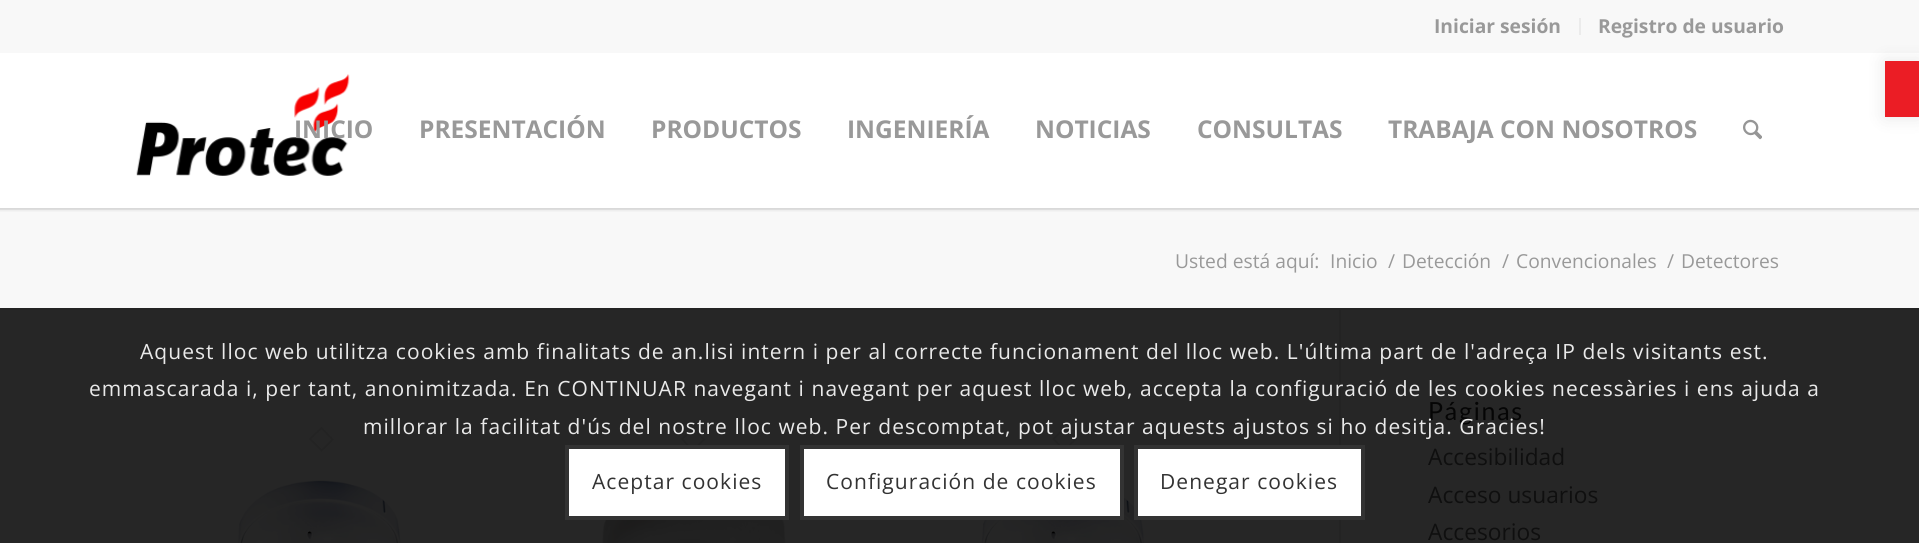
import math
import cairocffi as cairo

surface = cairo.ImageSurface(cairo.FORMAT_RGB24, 1919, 543)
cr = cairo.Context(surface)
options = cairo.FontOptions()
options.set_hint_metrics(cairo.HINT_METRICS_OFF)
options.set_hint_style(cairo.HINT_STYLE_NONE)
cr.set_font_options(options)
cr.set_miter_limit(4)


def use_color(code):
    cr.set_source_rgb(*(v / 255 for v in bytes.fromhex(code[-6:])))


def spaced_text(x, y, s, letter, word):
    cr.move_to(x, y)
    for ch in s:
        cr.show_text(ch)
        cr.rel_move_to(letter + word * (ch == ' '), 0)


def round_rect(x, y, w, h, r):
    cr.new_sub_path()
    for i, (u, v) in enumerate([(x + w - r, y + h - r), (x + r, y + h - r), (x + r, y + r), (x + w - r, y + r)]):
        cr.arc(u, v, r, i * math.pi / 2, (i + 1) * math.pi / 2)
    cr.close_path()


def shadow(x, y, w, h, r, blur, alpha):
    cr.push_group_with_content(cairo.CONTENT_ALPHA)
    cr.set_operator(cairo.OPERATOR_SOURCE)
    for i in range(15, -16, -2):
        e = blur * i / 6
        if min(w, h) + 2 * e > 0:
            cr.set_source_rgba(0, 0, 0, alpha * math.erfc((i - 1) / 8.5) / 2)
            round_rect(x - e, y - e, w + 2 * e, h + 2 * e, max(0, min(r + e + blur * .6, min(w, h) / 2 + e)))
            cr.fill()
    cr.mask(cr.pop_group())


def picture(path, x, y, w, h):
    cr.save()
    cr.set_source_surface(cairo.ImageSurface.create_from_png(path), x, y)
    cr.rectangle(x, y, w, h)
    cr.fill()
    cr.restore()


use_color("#ffffff")
cr.paint()
use_color("#262626")
cr.rectangle(0, 310, 1919, 233)
cr.fill()
use_color("#f8f8f8")
cr.rectangle(0, 210, 1919, 98)
cr.fill()
use_color("#ebebeb")
cr.rectangle(0, 208, 1919, 2)
cr.fill()
cr.save()
cr.rectangle(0, 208, 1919, 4)
cr.clip()
use_color("#000000")
shadow(-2, -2, 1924, 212, 0, 2, 0.1)
cr.restore()
use_color("#f8f8f8")
cr.rectangle(0, 0, 1919, 53)
cr.fill()
use_color("#ebebeb")
cr.rectangle(1579, 18, 2, 17)
cr.fill()
cr.select_font_face("Open Sans", cairo.FONT_SLANT_NORMAL, cairo.FONT_WEIGHT_BOLD)
cr.set_font_size(19.25)
use_color("#999999")
cr.move_to(1434, 33)
cr.show_text("Iniciar sesión")
cr.move_to(1598, 33)
cr.show_text("Registro de usuario")
picture("img1.png", 136, 74, 214, 102)
cr.set_font_size(24.5)
cr.move_to(294, 138)
cr.show_text("INICIO")
cr.move_to(419, 138)
cr.show_text("PRESENTACIÓN")
cr.move_to(651, 138)
cr.show_text("PRODUCTOS")
cr.move_to(847, 138)
cr.show_text("INGENIERÍA")
cr.move_to(1035, 138)
cr.show_text("NOTICIAS")
cr.move_to(1197, 138)
cr.show_text("CONSULTAS")
cr.move_to(1388, 138)
cr.show_text("TRABAJA CON NOSOTROS")
picture("img2.png", 1743, 119, 19, 21)
cr.select_font_face("Open Sans")
cr.set_font_size(19.25)
cr.move_to(1175, 268)
cr.show_text("Usted está aquí:")
cr.move_to(1330, 268)
cr.show_text("Inicio")
cr.move_to(1388, 268)
cr.show_text("/")
cr.move_to(1402, 268)
cr.show_text("Detección")
cr.move_to(1502, 268)
cr.show_text("/")
cr.move_to(1516, 268)
cr.show_text("Convencionales")
cr.move_to(1667, 268)
cr.show_text("/")
cr.move_to(1681, 268)
cr.show_text("Detectores")
use_color("#232323")
cr.rectangle(0, 308, 1919, 2)
cr.fill()
cr.rectangle(1339, 310, 2, 233)
cr.fill()
cr.new_path()
cr.move_to(321.5, 428)
cr.line_to(332.5, 439.5)
cr.line_to(321.5, 450.5)
cr.line_to(310, 439)
cr.close_path()
cr.set_line_width(1.8)
cr.stroke()
picture("img3.png", 238, 480, 163, 63)
cr.new_path()
cr.move_to(693, 428)
cr.line_to(704, 439.5)
cr.line_to(693, 450.5)
cr.line_to(682, 439)
cr.close_path()
cr.stroke()
picture("img4.png", 602, 520, 184, 23)
cr.new_path()
cr.move_to(1064.5, 428)
cr.line_to(1075.5, 439)
cr.line_to(1064.5, 450.5)
cr.line_to(1053.5, 439)
cr.close_path()
cr.stroke()
picture("img5.png", 981, 480, 163, 63)
cr.select_font_face("Lato")
cr.set_font_size(25)
use_color("#050505")
spaced_text(1428, 420, "Páginas", 1.75, 0)
cr.select_font_face("Open Sans")
cr.set_font_size(22.75)
use_color("#0f0f0f")
cr.move_to(1428, 465)
cr.show_text("Accesibilidad")
cr.move_to(1428, 503)
cr.show_text("Acceso usuarios")
cr.move_to(1428, 540)
cr.show_text("Accesorios")
use_color("#000000")
shadow(1885, 61, 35, 56, 0, 9, 0.1)
use_color("#eb1d25")
cr.rectangle(1885, 61, 34, 56)
cr.fill()
cr.set_font_size(21)
use_color("#e9e9e9")
spaced_text(140, 359, "Aquest lloc web utilitza cookies amb finalitats de an.lisi intern i per al correcte funcionament del lloc web. L'última part de l'adreça IP dels visitants est.", 1.05, 0)
spaced_text(89, 396, "emmascarada i, per tant, anonimitzada. En CONTINUAR navegant i navegant per aquest lloc web, accepta la configuració de les cookies necessàries i ens ajuda a", 1.05, 0)
spaced_text(363, 434, "millorar la facilitat d'ús del nostre lloc web. Per descomptat, pot ajustar aquests ajustos si ho desitja. Gracies!", 1.05, 0)
use_color("#ffffff")
cr.rectangle(567, 447, 220, 71)
cr.fill_preserve()
use_color("#333333")
cr.set_line_width(4)
cr.stroke()
spaced_text(592, 489, "Aceptar cookies", 1.05, 0)
use_color("#ffffff")
cr.rectangle(802, 447, 320, 71)
cr.fill_preserve()
use_color("#333333")
cr.stroke()
spaced_text(826, 489, "Configuración de cookies", 1.05, 0)
use_color("#ffffff")
cr.rectangle(1136, 447, 227, 71)
cr.fill_preserve()
use_color("#333333")
cr.stroke()
spaced_text(1160, 489, "Denegar cookies", 1.05, 0)
surface.write_to_png("result.png")
